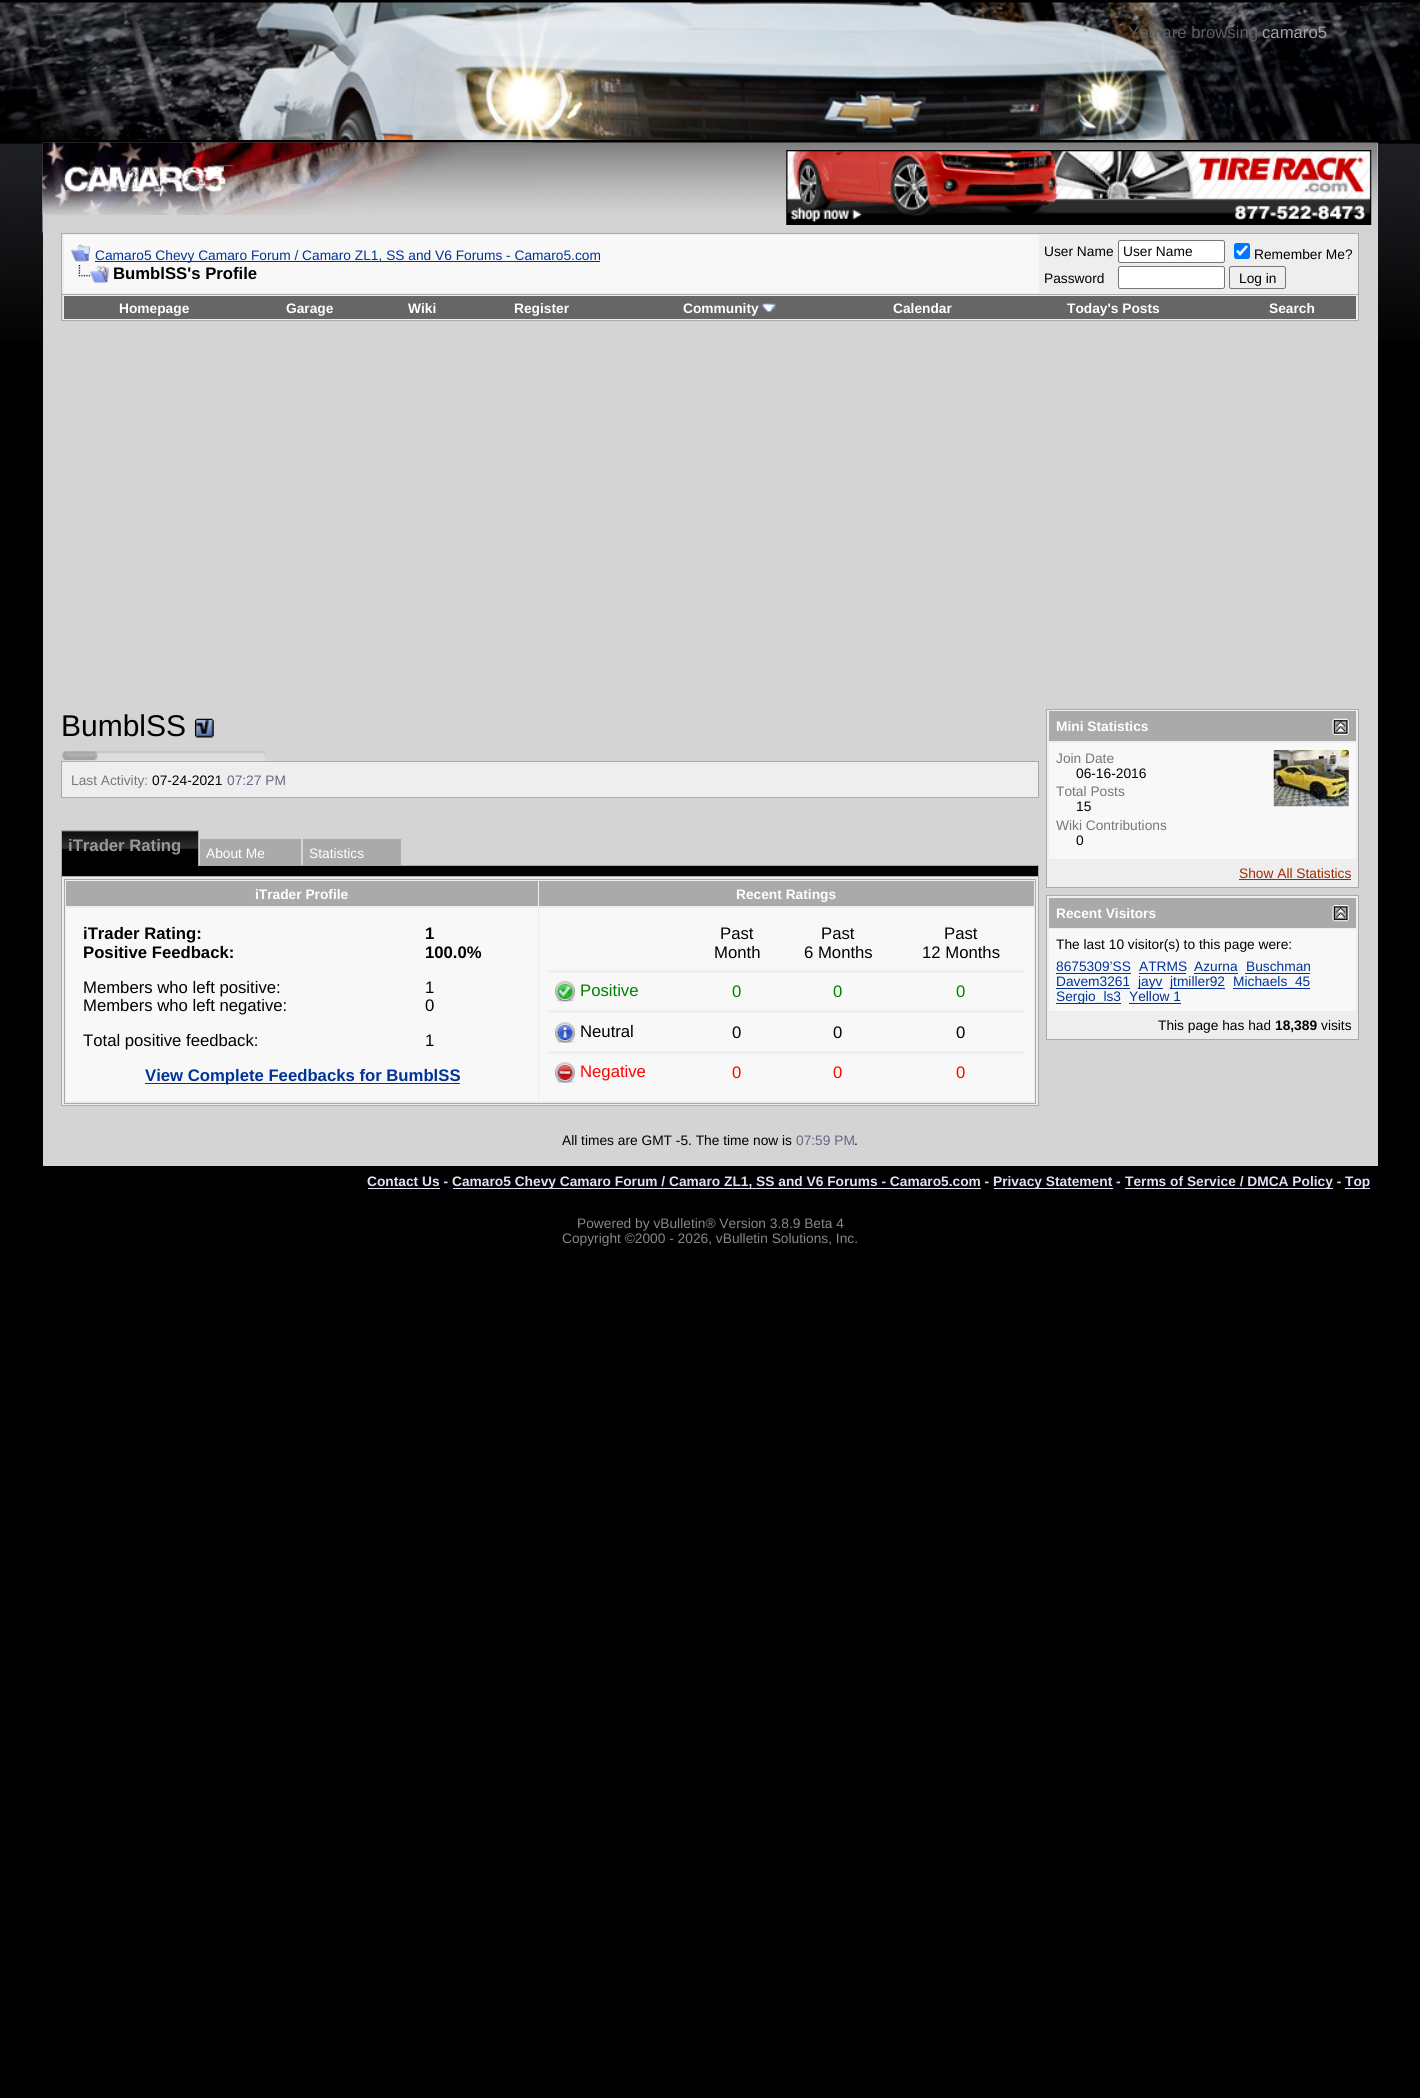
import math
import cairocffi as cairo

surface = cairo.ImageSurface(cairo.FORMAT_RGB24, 1420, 2098)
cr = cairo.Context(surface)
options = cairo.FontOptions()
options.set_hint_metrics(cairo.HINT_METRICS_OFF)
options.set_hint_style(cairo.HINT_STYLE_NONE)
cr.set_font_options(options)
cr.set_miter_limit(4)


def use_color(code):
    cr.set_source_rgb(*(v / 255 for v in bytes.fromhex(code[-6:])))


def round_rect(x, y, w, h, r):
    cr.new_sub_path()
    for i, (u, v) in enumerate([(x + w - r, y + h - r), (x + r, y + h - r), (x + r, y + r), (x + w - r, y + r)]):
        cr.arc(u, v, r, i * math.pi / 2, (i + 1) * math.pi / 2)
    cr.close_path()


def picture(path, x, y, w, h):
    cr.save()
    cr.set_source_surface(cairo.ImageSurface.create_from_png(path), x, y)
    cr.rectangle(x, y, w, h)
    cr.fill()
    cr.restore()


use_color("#000000")
cr.paint()
picture("img1.png", 0, 143, 1420, 198)
picture("img2.png", 0, 2, 1420, 138)
cr.select_font_face("Liberation Sans")
cr.set_font_size(16.7)
use_color("#5f5e5f")
cr.move_to(1128, 38)
cr.show_text("You are browsing")
use_color("#a3a3a5")
cr.move_to(1262, 38)
cr.show_text("camaro5")
picture("img3.png", 1334, 30, 14, 7)
use_color("#d1d1d1")
cr.rectangle(43, 143, 1335, 90)
cr.fill()
picture("img4.png", 42, 142, 1336, 91)
picture("img5.png", 42, 142, 491, 73)
picture("img6.png", 786, 150, 586, 75)
use_color("#d4d4d4")
cr.rectangle(43, 233, 1335, 933)
cr.fill()
use_color("#eeeeee")
cr.rectangle(61.5, 233.5, 1297, 61)
cr.fill_preserve()
use_color("#aaaaaa")
cr.set_line_width(1)
cr.stroke()
use_color("#f8f8f8")
cr.rectangle(64, 235, 975, 58)
cr.fill()
picture("img7.png", 71, 244, 19, 18)
use_color("#003399")
cr.rectangle(95, 261, 505, 1)
cr.fill()
cr.set_font_size(13.75)
cr.move_to(95, 260)
cr.show_text("Camaro5 Chevy Camaro Forum / Camaro ZL1, SS and V6 Forums - Camaro5.com")
picture("img8.png", 78, 265, 31, 18)
cr.select_font_face("Liberation Sans", cairo.FONT_SLANT_NORMAL, cairo.FONT_WEIGHT_BOLD)
cr.set_font_size(16.7)
use_color("#000000")
cr.move_to(113, 279)
cr.show_text("BumblSS's Profile")
cr.select_font_face("Liberation Sans")
cr.set_font_size(13.75)
cr.move_to(1044, 256)
cr.show_text("User Name")
use_color("#ffffff")
round_rect(1118.5, 240.5, 106, 22, 2)
cr.fill_preserve()
use_color("#767676")
cr.stroke()
use_color("#000000")
cr.move_to(1123, 256)
cr.show_text("User Name")
use_color("#0075ff")
round_rect(1234, 243, 16, 16, 2.5)
cr.fill()
cr.new_path()
cr.move_to(1237, 250.5)
cr.line_to(1240, 254)
cr.line_to(1247, 246)
use_color("#ffffff")
cr.set_line_width(2.6)
cr.stroke()
use_color("#000000")
cr.move_to(1254, 259)
cr.show_text("Remember Me?")
cr.move_to(1044, 283)
cr.show_text("Password")
use_color("#ffffff")
round_rect(1118.5, 266.5, 106, 22, 2)
cr.fill_preserve()
use_color("#767676")
cr.set_line_width(1)
cr.stroke()
round_rect(1229.5, 266.5, 56, 22, 2)
cr.stroke()
use_color("#000000")
cr.move_to(1239, 283)
cr.show_text("Log in")
use_color("#eeeeee")
cr.rectangle(63, 295, 1295, 25)
cr.fill()
use_color("#aaaaaa")
cr.rectangle(1358, 295, 1, 26)
cr.fill()
cr.rectangle(61, 320, 1298, 1)
cr.fill()
cr.rectangle(61, 295, 1, 26)
cr.fill()
use_color("#666666")
cr.rectangle(64, 296, 1292, 23)
cr.fill()
cr.select_font_face("Liberation Sans", cairo.FONT_SLANT_NORMAL, cairo.FONT_WEIGHT_BOLD)
use_color("#ffffff")
cr.move_to(119, 313)
cr.show_text("Homepage")
cr.move_to(286, 313)
cr.show_text("Garage")
cr.move_to(408, 313)
cr.show_text("Wiki")
cr.move_to(514, 313)
cr.show_text("Register")
cr.move_to(683, 313)
cr.show_text("Community")
picture("img9.png", 762, 303, 15, 10)
cr.move_to(893, 313)
cr.show_text("Calendar")
cr.move_to(1067, 313)
cr.show_text("Today's Posts")
cr.move_to(1269, 313)
cr.show_text("Search")
cr.select_font_face("Liberation Sans")
cr.set_font_size(30)
use_color("#000000")
cr.move_to(61, 736)
cr.show_text("BumblSS")
picture("img10.png", 195, 718, 19, 20)
use_color("#eeeeee")
cr.rectangle(61.5, 761.5, 977, 36)
cr.fill_preserve()
use_color("#aaaaaa")
cr.stroke()
picture("img11.png", 62, 751, 204, 11)
cr.set_font_size(13.75)
use_color("#777777")
cr.move_to(71, 785)
cr.show_text("Last Activity:")
use_color("#000000")
cr.move_to(152, 785)
cr.show_text("07-24-2021")
use_color("#666686")
cr.move_to(227, 785)
cr.show_text("07:27 PM")
use_color("#000000")
cr.rectangle(62, 866, 976, 10)
cr.fill()
use_color("#aaaaaa")
cr.rectangle(61, 865, 1, 11)
cr.fill()
picture("img12.png", 61, 831, 138, 36)
cr.rectangle(61, 830, 138, 1)
cr.fill()
cr.rectangle(198, 830, 1, 36)
cr.fill()
cr.rectangle(61, 830, 1, 36)
cr.fill()
cr.select_font_face("Liberation Sans", cairo.FONT_SLANT_NORMAL, cairo.FONT_WEIGHT_BOLD)
cr.set_font_size(16.7)
use_color("#999999")
cr.move_to(68, 851)
cr.show_text("iTrader Rating")
use_color("#aaaaaa")
cr.rectangle(200, 839, 101, 26)
cr.fill()
cr.select_font_face("Liberation Sans")
cr.set_font_size(13.75)
use_color("#ffffff")
cr.move_to(206, 858)
cr.show_text("About Me")
use_color("#aaaaaa")
cr.rectangle(303, 839, 98, 26)
cr.fill()
use_color("#ffffff")
cr.move_to(309, 858)
cr.show_text("Statistics")
use_color("#aaaaaa")
cr.rectangle(199, 865, 840, 1)
cr.fill()
cr.rectangle(1038, 865, 1, 11)
cr.fill()
use_color("#eeeeee")
cr.rectangle(61.5, 876.5, 977, 229)
cr.fill_preserve()
use_color("#aaaaaa")
cr.stroke()
cr.rectangle(64.5, 879.5, 971, 224)
cr.stroke()
cr.rectangle(66, 881, 472, 25)
cr.fill()
cr.select_font_face("Liberation Sans", cairo.FONT_SLANT_NORMAL, cairo.FONT_WEIGHT_BOLD)
use_color("#ffffff")
cr.move_to(255, 899)
cr.show_text("iTrader Profile")
use_color("#aaaaaa")
cr.rectangle(539, 881, 495, 25)
cr.fill()
use_color("#ffffff")
cr.move_to(736, 899)
cr.show_text("Recent Ratings")
use_color("#f8f8f8")
cr.rectangle(66, 908, 472, 193)
cr.fill()
cr.set_font_size(16.7)
use_color("#000000")
cr.move_to(83, 939)
cr.show_text("iTrader Rating:")
cr.move_to(83, 958)
cr.show_text("Positive Feedback:")
cr.move_to(425, 939)
cr.show_text("1")
cr.move_to(425, 958)
cr.show_text("100.0%")
cr.select_font_face("Liberation Sans")
cr.move_to(83, 993)
cr.show_text("Members who left positive:")
cr.move_to(83, 1011)
cr.show_text("Members who left negative:")
cr.move_to(425, 993)
cr.show_text("1")
cr.move_to(425, 1011)
cr.show_text("0")
cr.move_to(83, 1046)
cr.show_text("Total positive feedback:")
cr.move_to(425, 1046)
cr.show_text("1")
use_color("#003399")
cr.rectangle(145, 1083, 315, 1)
cr.fill()
cr.select_font_face("Liberation Sans", cairo.FONT_SLANT_NORMAL, cairo.FONT_WEIGHT_BOLD)
cr.move_to(145, 1081)
cr.show_text("View Complete Feedbacks for BumblSS")
use_color("#f8f8f8")
cr.rectangle(539, 908, 495, 193)
cr.fill()
cr.select_font_face("Liberation Sans")
use_color("#000000")
cr.move_to(720, 939)
cr.show_text("Past")
cr.move_to(714, 958)
cr.show_text("Month")
cr.move_to(821, 939)
cr.show_text("Past")
cr.move_to(804, 958)
cr.show_text("6 Months")
cr.move_to(944, 939)
cr.show_text("Past")
cr.move_to(922, 958)
cr.show_text("12 Months")
use_color("#eeeeee")
cr.rectangle(548, 970, 477, 3)
cr.fill()
picture("img13.png", 555, 981, 20, 21)
use_color("#008000")
cr.move_to(580, 996)
cr.show_text("Positive")
cr.move_to(732, 997)
cr.show_text("0")
cr.move_to(833, 997)
cr.show_text("0")
cr.move_to(956, 997)
cr.show_text("0")
use_color("#eeeeee")
cr.rectangle(548, 1010, 477, 3)
cr.fill()
picture("img14.png", 555, 1022, 20, 21)
use_color("#000000")
cr.move_to(580, 1037)
cr.show_text("Neutral")
cr.move_to(732, 1038)
cr.show_text("0")
cr.move_to(833, 1038)
cr.show_text("0")
cr.move_to(956, 1038)
cr.show_text("0")
use_color("#eeeeee")
cr.rectangle(548, 1051, 477, 3)
cr.fill()
picture("img15.png", 555, 1062, 20, 21)
use_color("#ff0000")
cr.move_to(580, 1077)
cr.show_text("Negative")
cr.move_to(732, 1078)
cr.show_text("0")
cr.move_to(833, 1078)
cr.show_text("0")
cr.move_to(956, 1078)
cr.show_text("0")
use_color("#eeeeee")
cr.rectangle(1046.5, 709.5, 312, 178)
cr.fill_preserve()
use_color("#aaaaaa")
cr.stroke()
cr.rectangle(1049, 711, 307, 30)
cr.fill()
cr.select_font_face("Liberation Sans", cairo.FONT_SLANT_NORMAL, cairo.FONT_WEIGHT_BOLD)
cr.set_font_size(13.75)
use_color("#ffffff")
cr.move_to(1056, 731)
cr.show_text("Mini Statistics")
picture("img16.png", 1332, 718, 17, 17)
use_color("#f8f8f8")
cr.rectangle(1049, 743, 307, 116)
cr.fill()
cr.select_font_face("Liberation Sans")
use_color("#777777")
cr.move_to(1056, 763)
cr.show_text("Join Date")
use_color("#000000")
cr.move_to(1076, 778)
cr.show_text("06-16-2016")
use_color("#777777")
cr.move_to(1056, 796)
cr.show_text("Total Posts")
use_color("#000000")
cr.move_to(1076, 811)
cr.show_text("15")
use_color("#777777")
cr.move_to(1056, 830)
cr.show_text("Wiki Contributions")
use_color("#000000")
cr.move_to(1076, 845)
cr.show_text("0")
picture("img17.png", 1273, 750, 76, 57)
use_color("#a22a00")
cr.move_to(1239, 878)
cr.show_text("Show All Statistics")
cr.rectangle(1239, 879, 112, 1)
cr.fill()
use_color("#eeeeee")
cr.rectangle(1046.5, 895.5, 312, 144)
cr.fill_preserve()
use_color("#aaaaaa")
cr.stroke()
cr.rectangle(1049, 898, 307, 30)
cr.fill()
cr.select_font_face("Liberation Sans", cairo.FONT_SLANT_NORMAL, cairo.FONT_WEIGHT_BOLD)
use_color("#ffffff")
cr.move_to(1056, 918)
cr.show_text("Recent Visitors")
picture("img18.png", 1332, 905, 17, 17)
use_color("#f8f8f8")
cr.rectangle(1049, 929, 307, 82)
cr.fill()
cr.select_font_face("Liberation Sans")
use_color("#000000")
cr.move_to(1056, 949)
cr.show_text("The last 10 visitor(s) to this page were:")
use_color("#003399")
cr.move_to(1056, 971)
cr.show_text("8675309’SS")
cr.rectangle(1056, 973, 75, 1)
cr.fill()
cr.move_to(1139, 971)
cr.show_text("ATRMS")
cr.rectangle(1139, 973, 47, 1)
cr.fill()
cr.move_to(1194, 971)
cr.show_text("Azurna")
cr.rectangle(1194, 973, 44, 1)
cr.fill()
cr.move_to(1246, 971)
cr.show_text("Buschman")
cr.rectangle(1245, 973, 65, 1)
cr.fill()
cr.move_to(1056, 986)
cr.show_text("Davem3261")
cr.rectangle(1056, 988, 74, 1)
cr.fill()
cr.rectangle(1138, 988, 25, 1)
cr.fill()
cr.move_to(1138, 986)
cr.show_text("jayv")
cr.rectangle(1170, 988, 55, 1)
cr.fill()
cr.move_to(1170, 986)
cr.show_text("jtmiller92")
cr.rectangle(1233, 988, 77, 1)
cr.fill()
cr.move_to(1233, 986)
cr.show_text("Michaels_45")
cr.rectangle(1056, 1003, 65, 1)
cr.fill()
cr.move_to(1056, 1001)
cr.show_text("Sergio_ls3")
cr.move_to(1129, 1001)
cr.show_text("Yellow 1")
cr.rectangle(1129, 1003, 52, 1)
cr.fill()
use_color("#000000")
cr.move_to(1158, 1030)
cr.show_text("This page has had")
cr.select_font_face("Liberation Sans", cairo.FONT_SLANT_NORMAL, cairo.FONT_WEIGHT_BOLD)
cr.move_to(1275, 1030)
cr.show_text("18,389")
cr.select_font_face("Liberation Sans")
cr.move_to(1321, 1030)
cr.show_text("visits")
cr.move_to(562, 1145)
cr.show_text("All times are GMT -5. The time now is")
use_color("#666686")
cr.move_to(796, 1145)
cr.show_text("07:59 PM")
use_color("#000000")
cr.move_to(854, 1145)
cr.show_text(".")
cr.select_font_face("Liberation Sans", cairo.FONT_SLANT_NORMAL, cairo.FONT_WEIGHT_BOLD)
use_color("#e0e0f6")
cr.move_to(367, 1186)
cr.show_text("Contact Us -")
cr.rectangle(368, 1188, 72, 1)
cr.fill()
cr.rectangle(453, 1188, 528, 1)
cr.fill()
cr.move_to(452, 1186)
cr.show_text("Camaro5 Chevy Camaro Forum / Camaro ZL1, SS and V6 Forums - Camaro5.com -")
cr.rectangle(994, 1188, 119, 1)
cr.fill()
cr.move_to(993, 1186)
cr.show_text("Privacy Statement -")
cr.rectangle(1125, 1188, 208, 1)
cr.fill()
cr.move_to(1125, 1186)
cr.show_text("Terms of Service / DMCA Policy -")
cr.rectangle(1345, 1188, 25, 1)
cr.fill()
cr.move_to(1345, 1186)
cr.show_text("Top")
cr.select_font_face("Liberation Sans")
use_color("#888888")
cr.move_to(577, 1228)
cr.show_text("Powered by vBulletin® Version 3.8.9 Beta 4")
cr.move_to(562, 1243)
cr.show_text("Copyright ©2000 - 2026, vBulletin Solutions, Inc.")
surface.write_to_png("result.png")
